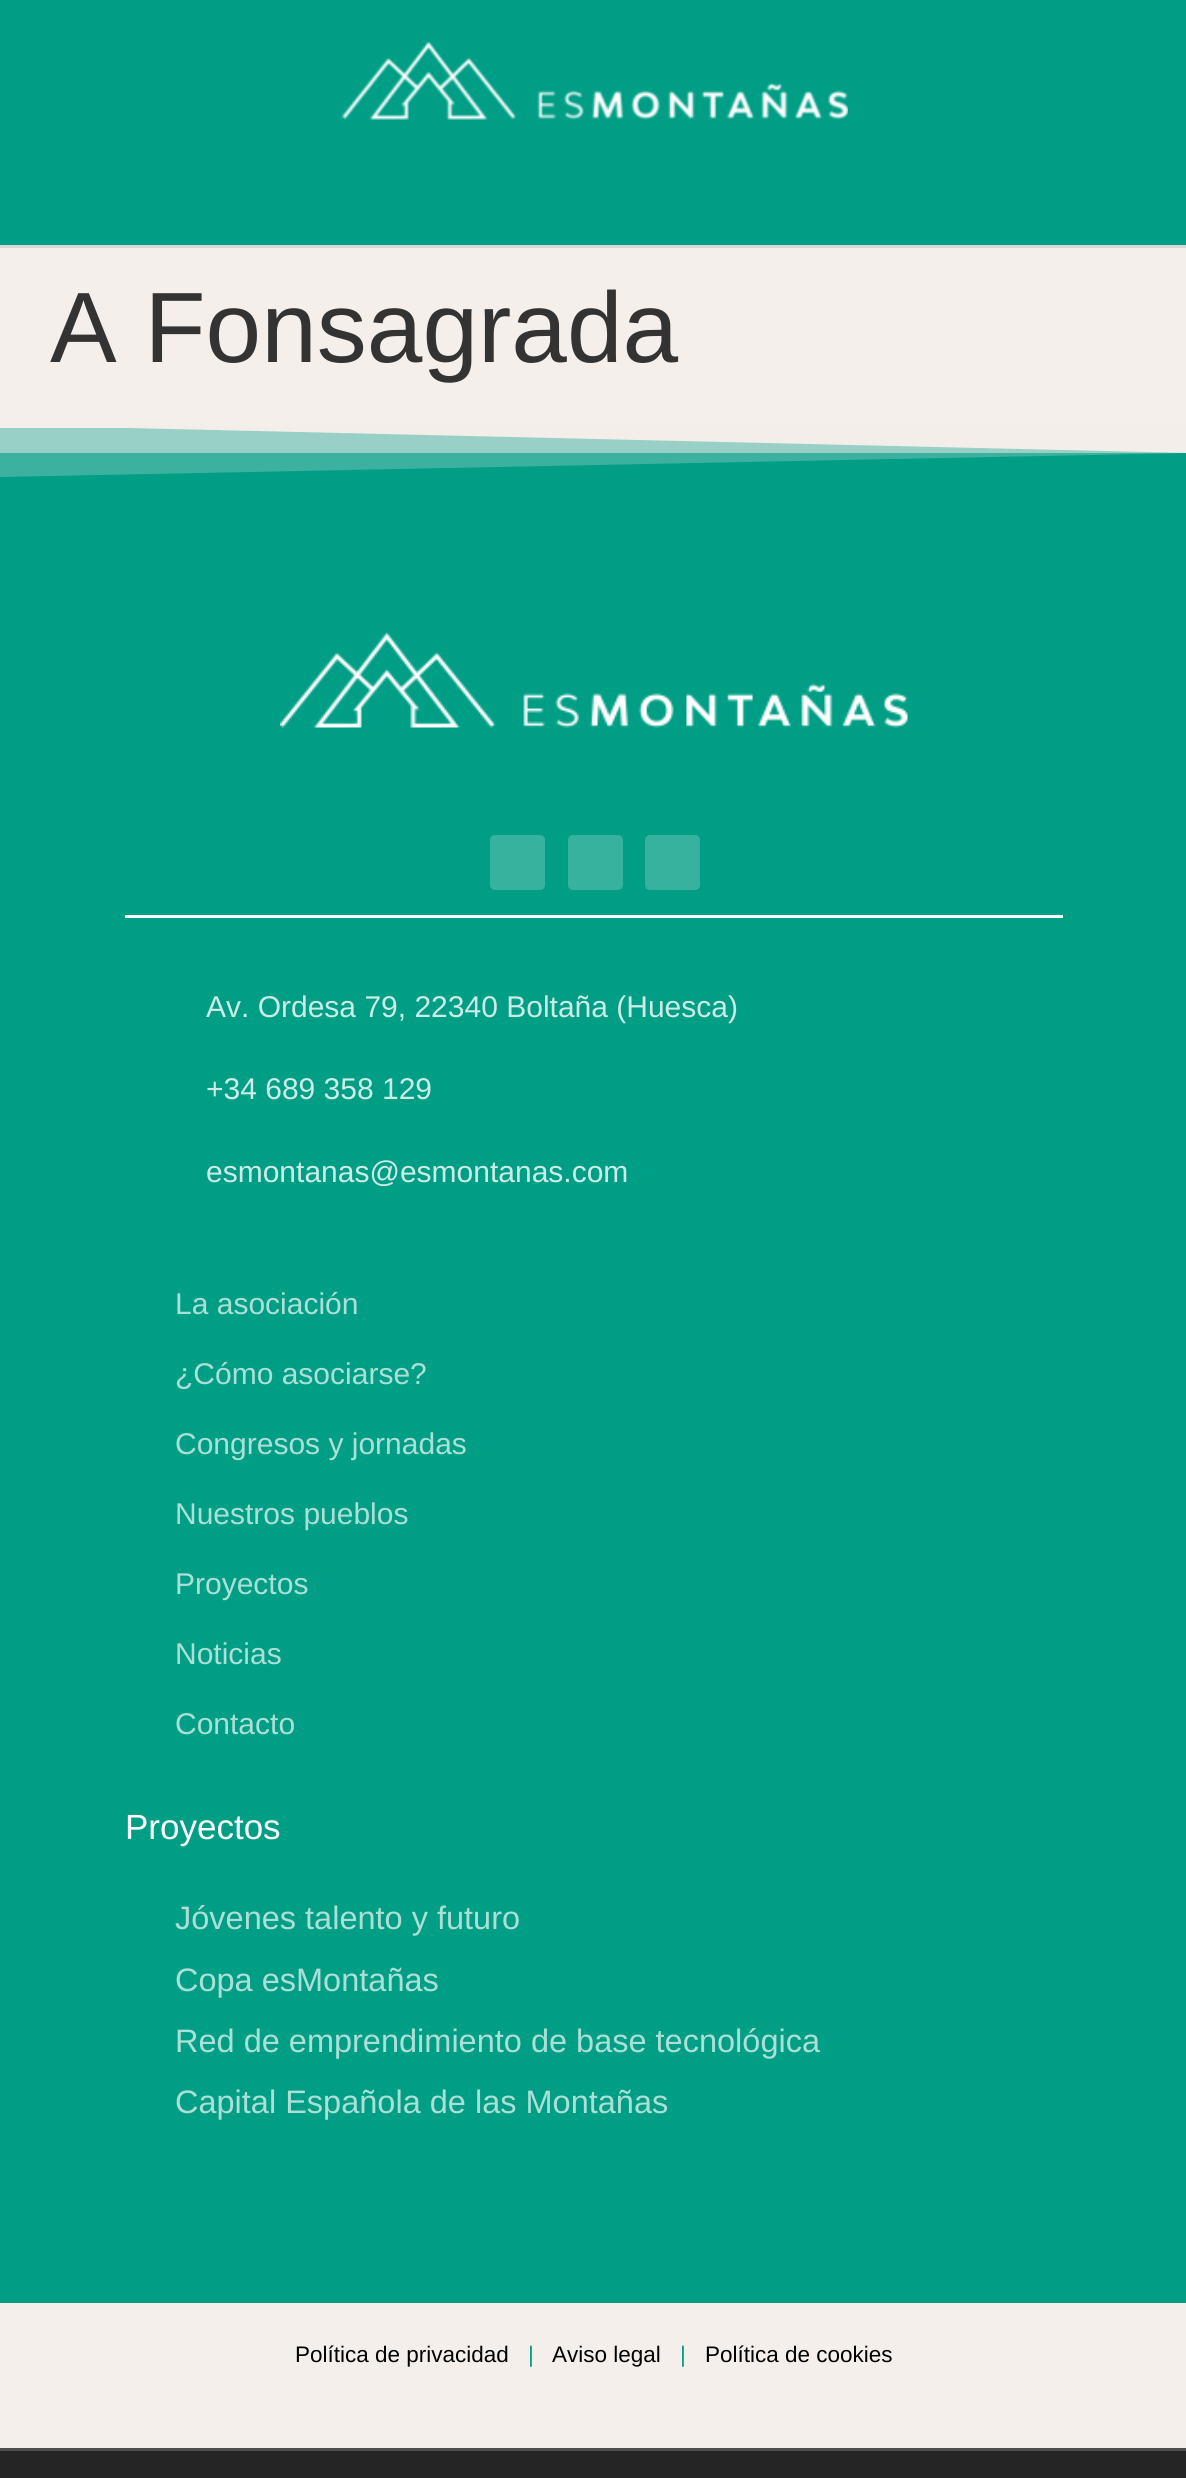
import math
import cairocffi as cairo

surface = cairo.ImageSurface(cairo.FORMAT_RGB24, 1186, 2478)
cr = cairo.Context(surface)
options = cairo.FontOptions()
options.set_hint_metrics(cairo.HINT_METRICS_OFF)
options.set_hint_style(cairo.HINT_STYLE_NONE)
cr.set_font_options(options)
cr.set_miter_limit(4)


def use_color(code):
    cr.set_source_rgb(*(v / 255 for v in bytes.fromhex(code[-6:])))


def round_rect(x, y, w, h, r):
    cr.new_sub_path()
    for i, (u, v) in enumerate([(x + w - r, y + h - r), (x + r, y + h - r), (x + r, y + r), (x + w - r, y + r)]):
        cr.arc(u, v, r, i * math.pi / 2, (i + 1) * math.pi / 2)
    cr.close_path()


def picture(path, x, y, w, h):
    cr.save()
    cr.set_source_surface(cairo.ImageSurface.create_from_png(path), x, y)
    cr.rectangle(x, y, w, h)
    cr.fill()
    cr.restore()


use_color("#f4efeb")
cr.paint()
use_color("#009e85")
cr.rectangle(0, 0, 1186, 245)
cr.fill()
use_color("#d6d6d6")
cr.rectangle(0, 245, 1186, 3)
cr.fill()
picture("img1.png", 341, 41, 507, 79)
cr.select_font_face("Liberation Sans")
cr.set_font_size(100)
use_color("#333333")
cr.move_to(50, 362)
cr.show_text("A Fonsagrada")
use_color("#009e85")
cr.rectangle(0, 453, 1186, 1850)
cr.fill()
use_color("#7ac7b8")
cr.rectangle(0, 428, 1186, 25)
cr.fill()
use_color("#f4efeb")
cr.new_path()
cr.move_to(0, 425)
cr.line_to(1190, 425)
cr.line_to(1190, 453)
cr.close_path()
cr.fill()
cr.set_source_rgba(0.957, 0.937, 0.922, 0.25)
cr.new_path()
cr.move_to(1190, 425)
cr.line_to(0, 425)
cr.line_to(0, 477)
cr.line_to(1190, 453)
cr.close_path()
cr.fill()
use_color("#ffffff")
cr.rectangle(125, 915, 938, 3)
cr.fill()
picture("img2.png", 280, 632, 628, 96)
use_color("#36b29f")
round_rect(490, 835, 55, 55, 5)
cr.fill()
round_rect(568, 835, 55, 55, 5)
cr.fill()
round_rect(645, 835, 55, 55, 5)
cr.fill()
cr.set_font_size(30)
use_color("#ccece7")
cr.move_to(206, 1017)
cr.show_text("Av. Ordesa 79, 22340 Boltaña (Huesca)")
cr.move_to(206, 1099)
cr.show_text("+34 689 358 129")
cr.move_to(206, 1182)
cr.show_text("esmontanas@esmontanas.com")
use_color("#abdfd7")
cr.move_to(175, 1314)
cr.show_text("La asociación")
cr.move_to(175, 1384)
cr.show_text("¿Cómo asociarse?")
cr.move_to(175, 1454)
cr.show_text("Congresos y jornadas")
cr.move_to(175, 1524)
cr.show_text("Nuestros pueblos")
cr.move_to(175, 1594)
cr.show_text("Proyectos")
cr.move_to(175, 1664)
cr.show_text("Noticias")
cr.move_to(175, 1734)
cr.show_text("Contacto")
cr.set_font_size(35)
use_color("#ffffff")
cr.move_to(125, 1839)
cr.show_text("Proyectos")
cr.set_font_size(32.5)
use_color("#abdfd7")
cr.move_to(175, 1929)
cr.show_text("Jóvenes talento y futuro")
cr.move_to(175, 1991)
cr.show_text("Copa esMontañas")
cr.move_to(175, 2052)
cr.show_text("Red de emprendimiento de base tecnológica")
cr.move_to(175, 2113)
cr.show_text("Capital Española de las Montañas")
cr.set_font_size(22.5)
use_color("#000000")
cr.move_to(295, 2362)
cr.show_text("Política de privacidad")
use_color("#009e85")
cr.move_to(528, 2362)
cr.show_text("|")
use_color("#000000")
cr.move_to(552, 2362)
cr.show_text("Aviso legal")
use_color("#009e85")
cr.move_to(680, 2362)
cr.show_text("|")
use_color("#000000")
cr.move_to(705, 2362)
cr.show_text("Política de cookies")
use_color("#252525")
cr.rectangle(0, 2451, 1186, 27)
cr.fill()
use_color("#4e4e4e")
cr.rectangle(0, 2448, 1186, 3)
cr.fill()
surface.write_to_png("result.png")
